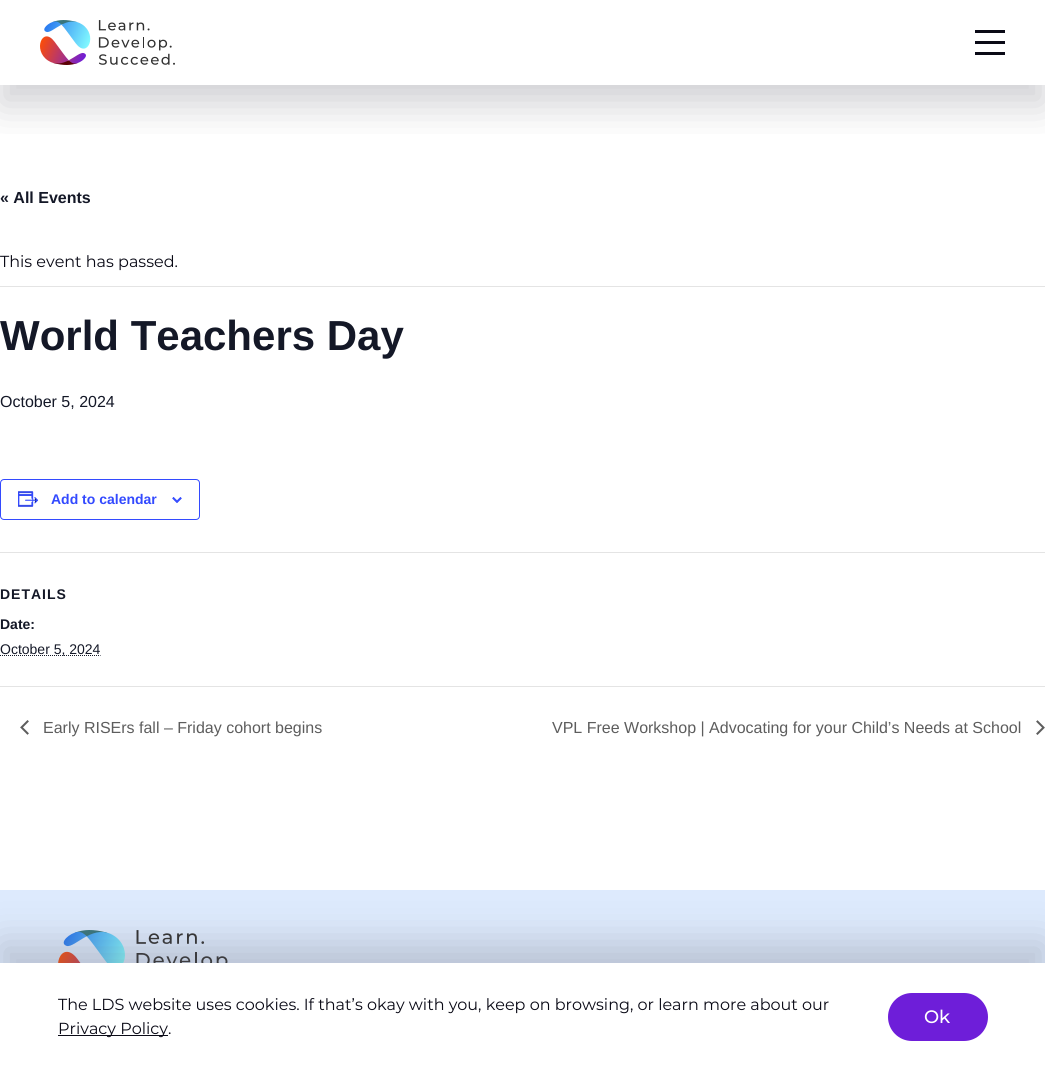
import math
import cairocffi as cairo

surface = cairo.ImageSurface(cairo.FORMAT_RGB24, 1045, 1071)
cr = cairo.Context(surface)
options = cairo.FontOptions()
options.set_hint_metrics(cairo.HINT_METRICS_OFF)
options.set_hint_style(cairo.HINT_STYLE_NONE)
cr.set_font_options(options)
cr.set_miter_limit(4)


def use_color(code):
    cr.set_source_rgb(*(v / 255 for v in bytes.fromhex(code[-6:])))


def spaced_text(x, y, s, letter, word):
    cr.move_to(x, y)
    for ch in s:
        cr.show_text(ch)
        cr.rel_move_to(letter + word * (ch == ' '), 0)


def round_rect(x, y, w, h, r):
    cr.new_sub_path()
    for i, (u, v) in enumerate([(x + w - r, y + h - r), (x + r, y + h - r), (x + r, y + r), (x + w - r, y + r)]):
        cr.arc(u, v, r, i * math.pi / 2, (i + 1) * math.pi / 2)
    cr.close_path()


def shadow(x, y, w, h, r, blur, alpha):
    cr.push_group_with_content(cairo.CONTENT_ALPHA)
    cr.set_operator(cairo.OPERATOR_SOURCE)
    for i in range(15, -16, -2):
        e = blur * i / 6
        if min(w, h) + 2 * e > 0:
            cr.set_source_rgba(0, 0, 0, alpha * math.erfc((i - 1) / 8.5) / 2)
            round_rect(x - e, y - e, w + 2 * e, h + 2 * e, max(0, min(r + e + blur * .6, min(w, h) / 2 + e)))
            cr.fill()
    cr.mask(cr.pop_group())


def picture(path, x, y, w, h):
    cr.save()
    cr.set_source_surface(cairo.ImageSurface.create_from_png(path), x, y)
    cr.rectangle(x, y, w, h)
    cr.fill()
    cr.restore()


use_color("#ffffff")
cr.paint()
cr.save()
cr.rectangle(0, 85, 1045, 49)
cr.clip()
use_color("#64646f")
shadow(0, 20, 1045, 85, 0, 19.5, 0.3)
cr.restore()
picture("img1.png", 40, 20, 135, 45)
use_color("#0a0a16")
cr.rectangle(975, 30, 30, 3)
cr.fill()
cr.rectangle(975, 41, 30, 3)
cr.fill()
cr.rectangle(975, 52, 30, 3)
cr.fill()
cr.select_font_face("Liberation Sans", cairo.FONT_SLANT_NORMAL, cairo.FONT_WEIGHT_BOLD)
cr.set_font_size(16)
use_color("#141827")
cr.move_to(0, 203)
cr.show_text("« All Events")
use_color("#e4e4e4")
cr.rectangle(0, 286, 1045, 1)
cr.fill()
cr.select_font_face("Montserrat")
use_color("#0a0a16")
cr.move_to(0, 267)
cr.show_text("This event has passed.")
cr.select_font_face("Liberation Sans", cairo.FONT_SLANT_NORMAL, cairo.FONT_WEIGHT_BOLD)
cr.set_font_size(42)
use_color("#141827")
cr.move_to(0, 350)
cr.show_text("World Teachers Day")
cr.select_font_face("Liberation Sans")
cr.set_font_size(16)
cr.move_to(0, 407)
cr.show_text("October 5, 2024")
round_rect(0.5, 479.5, 199, 40, 3.5)
use_color("#334aff")
cr.set_line_width(1)
cr.stroke()
picture("img2.png", 18, 491, 21, 16)
cr.select_font_face("Liberation Sans", cairo.FONT_SLANT_NORMAL, cairo.FONT_WEIGHT_BOLD)
cr.set_font_size(14)
cr.move_to(51, 504)
cr.show_text("Add to calendar")
picture("img3.png", 172, 497, 10, 6)
use_color("#e4e4e4")
cr.rectangle(0, 552, 1045, 1)
cr.fill()
use_color("#141827")
spaced_text(0, 599, "DETAILS", 1, 0)
cr.move_to(0, 629)
cr.show_text("Date:")
cr.new_path()
cr.move_to(0, 655.5)
cr.line_to(100.5, 655.5)
cr.set_dash([1, 1])
cr.stroke()
cr.select_font_face("Liberation Sans")
cr.move_to(0, 654)
cr.show_text("October 5, 2024")
use_color("#e4e4e4")
cr.rectangle(0, 686, 1045, 1)
cr.fill()
picture("img4.png", 20, 720, 9, 15)
cr.set_font_size(16)
use_color("#5d5d5d")
cr.move_to(43, 733)
cr.show_text("Early RISErs fall – Friday cohort begins")
cr.move_to(552, 733)
cr.show_text("VPL Free Workshop | Advocating for your Child’s Needs at School")
picture("img5.png", 1036, 720, 9, 15)
use_color("#ddeafd")
cr.rectangle(0, 890, 1045, 73)
cr.fill()
picture("img6.png", 58, 930, 170, 33)
use_color("#64646f")
shadow(0, 943, 1045, 108, 0, 19.5, 0.3)
use_color("#ffffff")
cr.rectangle(0, 963, 1045, 108)
cr.fill()
cr.select_font_face("Montserrat")
use_color("#0a0a16")
cr.move_to(58, 1010)
cr.show_text("The LDS website uses cookies. If that’s okay with you, keep on browsing, or learn more about our")
cr.rectangle(58, 1035, 110, 1)
cr.fill()
cr.move_to(58, 1034)
cr.show_text("Privacy Policy.")
use_color("#6e1ed9")
round_rect(888, 993, 100, 48, 24)
cr.fill()
cr.select_font_face("Montserrat Medium")
cr.set_font_size(18)
use_color("#ffffff")
cr.move_to(924, 1023)
cr.show_text("Ok")
surface.write_to_png("result.png")
